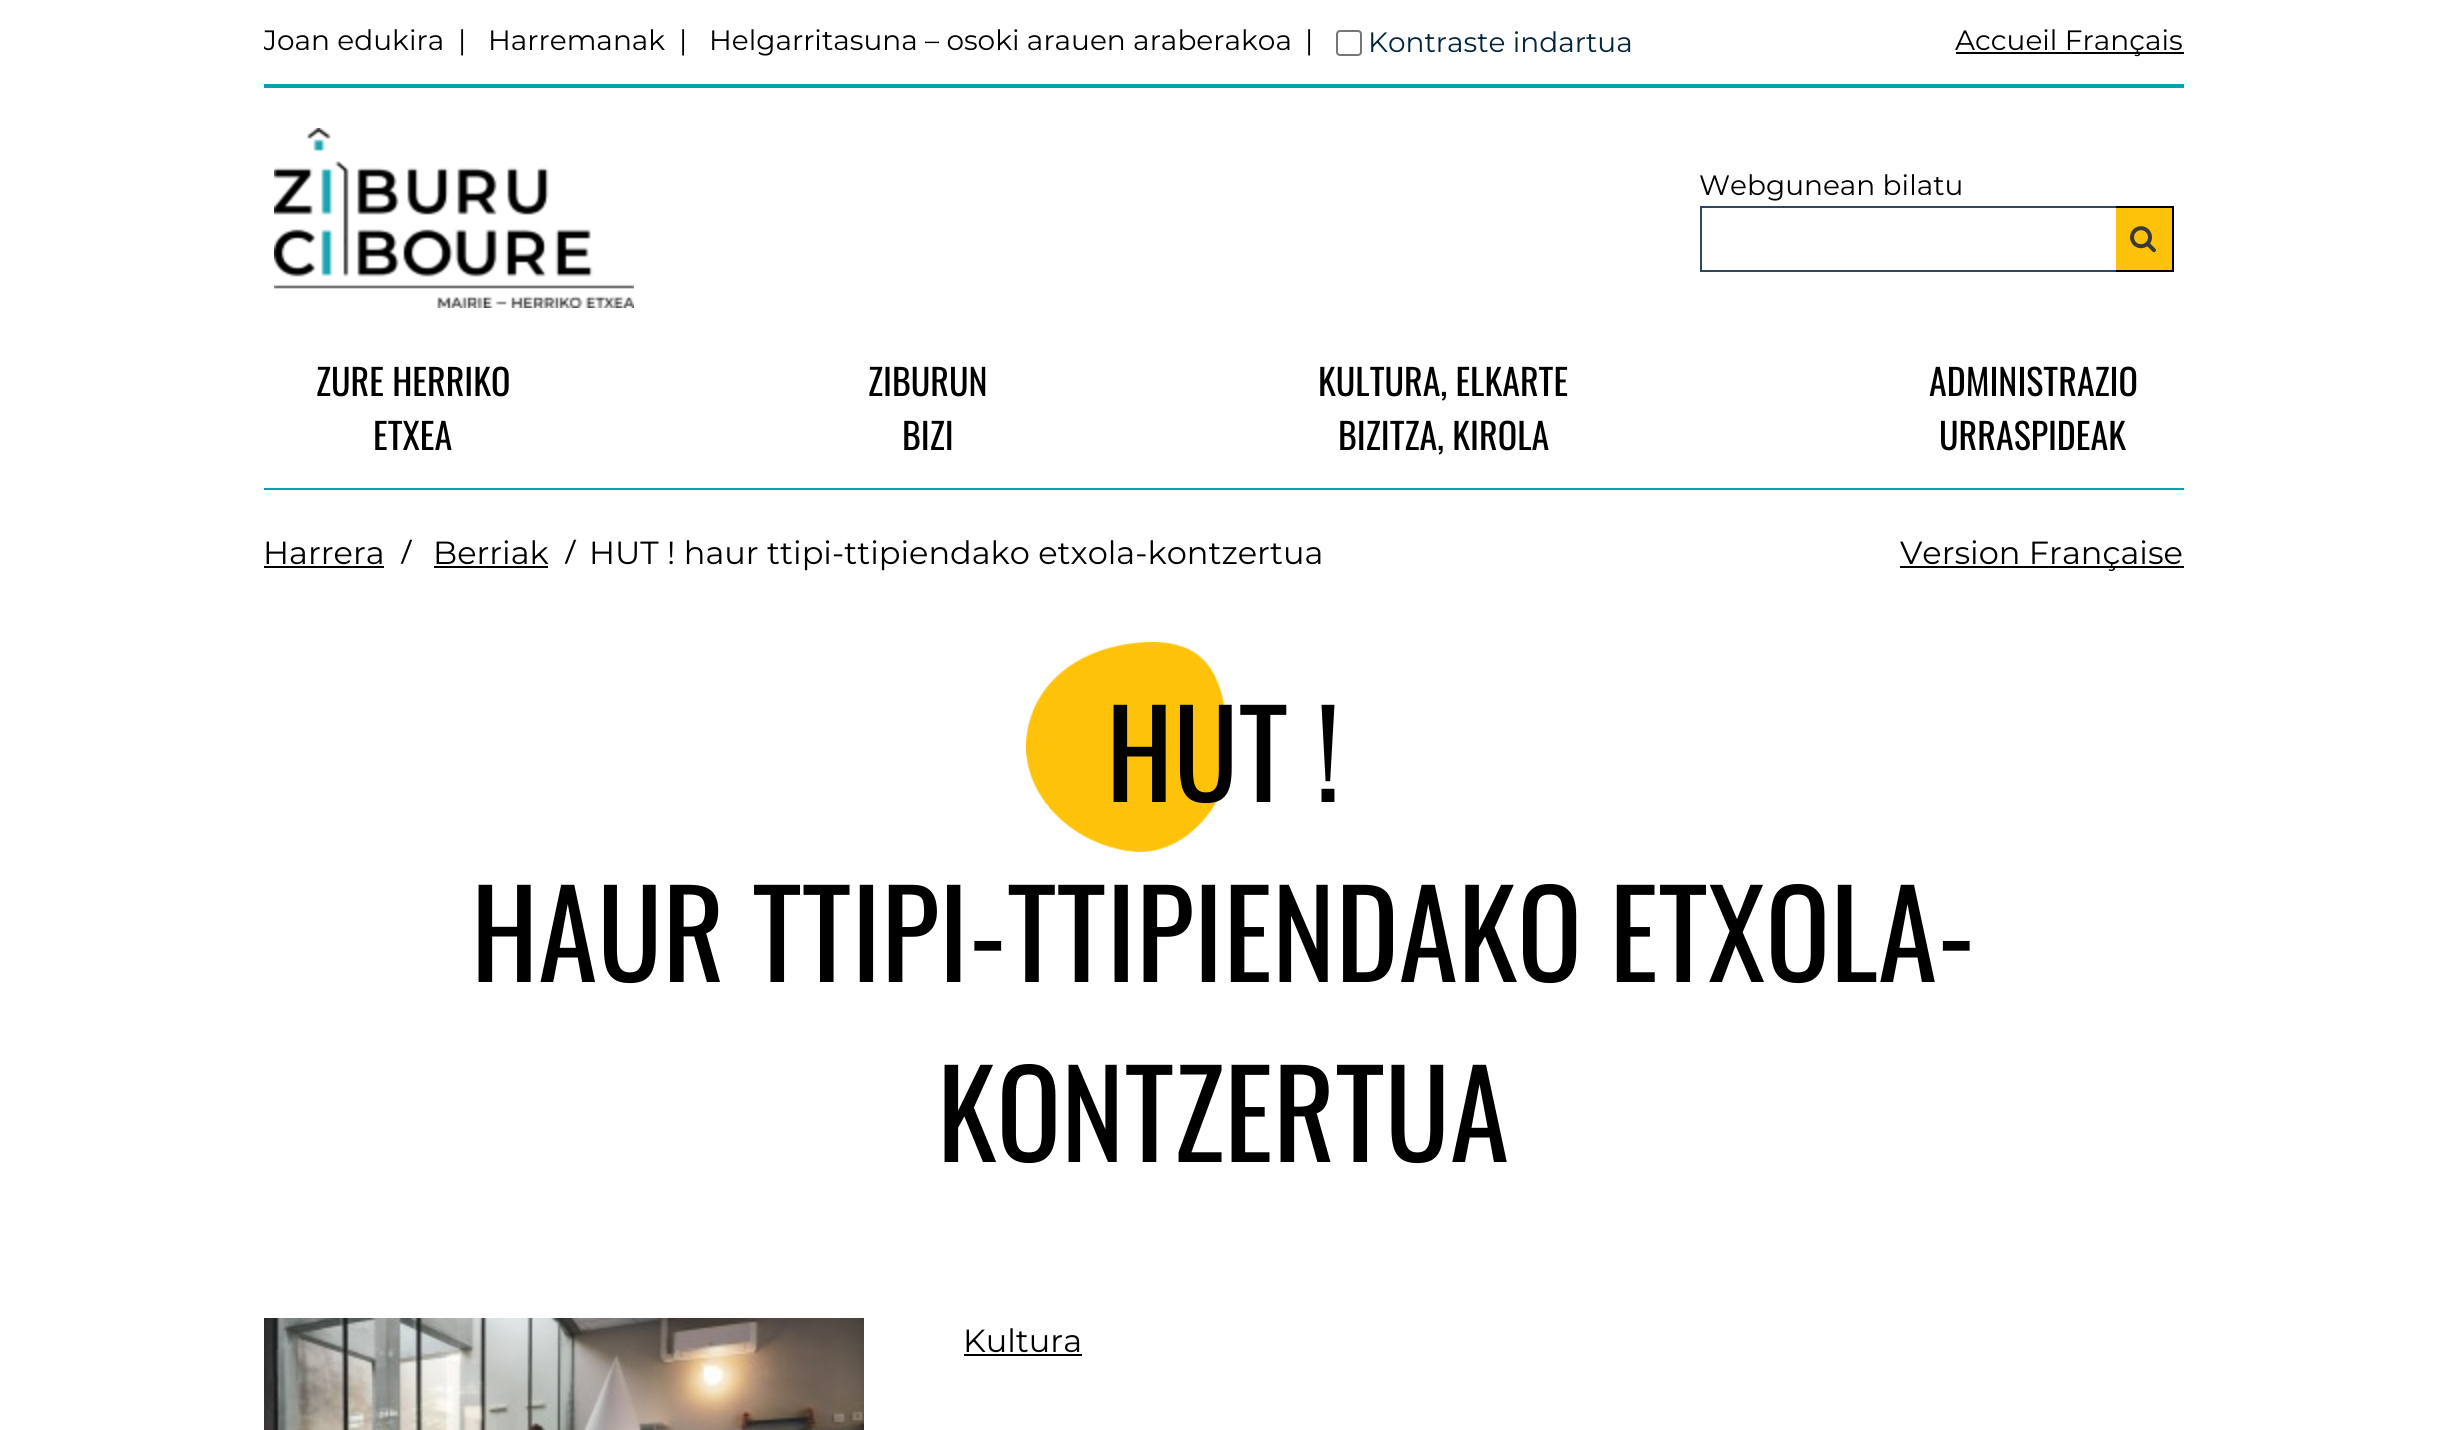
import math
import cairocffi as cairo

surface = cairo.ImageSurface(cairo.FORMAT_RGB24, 2446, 1430)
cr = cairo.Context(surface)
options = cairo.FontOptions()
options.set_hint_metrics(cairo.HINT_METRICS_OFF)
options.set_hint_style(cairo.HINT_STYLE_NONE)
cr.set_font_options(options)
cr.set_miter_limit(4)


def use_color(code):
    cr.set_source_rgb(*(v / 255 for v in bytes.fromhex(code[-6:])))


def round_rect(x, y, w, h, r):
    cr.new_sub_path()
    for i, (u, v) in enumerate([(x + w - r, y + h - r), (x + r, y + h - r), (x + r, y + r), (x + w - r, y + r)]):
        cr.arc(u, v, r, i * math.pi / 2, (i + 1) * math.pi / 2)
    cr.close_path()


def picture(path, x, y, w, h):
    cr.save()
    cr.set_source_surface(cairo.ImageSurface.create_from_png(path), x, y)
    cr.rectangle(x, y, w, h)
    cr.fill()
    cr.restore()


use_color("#ffffff")
cr.paint()
cr.save()
cr.rectangle(264, 0, 1920, 308)
cr.clip()
cr.select_font_face("Montserrat")
cr.set_font_size(28)
use_color("#000000")
cr.move_to(263, 50)
cr.show_text("Joan edukira")
cr.restore()
cr.select_font_face("Montserrat")
cr.set_font_size(28)
use_color("#000000")
cr.move_to(458, 50)
cr.show_text("|")
cr.move_to(488, 50)
cr.show_text("Harremanak")
cr.move_to(679, 50)
cr.show_text("|")
cr.move_to(709, 50)
cr.show_text("Helgarritasuna – osoki arauen araberakoa")
cr.move_to(1305, 50)
cr.show_text("|")
round_rect(1337, 31, 24, 24, 3)
use_color("#767676")
cr.stroke()
use_color("#00253f")
cr.move_to(1368, 52)
cr.show_text("Kontraste indartua")
use_color("#000000")
cr.rectangle(1956, 52, 228, 2)
cr.fill()
cr.move_to(1955, 50)
cr.show_text("Accueil Français")
use_color("#00a4af")
cr.rectangle(264, 84, 1920, 4)
cr.fill()
picture("img1.png", 274, 128, 360, 180)
use_color("#000000")
cr.move_to(1699, 195)
cr.show_text("Webgunean bilatu")
use_color("#31455d")
cr.rectangle(1700, 206, 416, 2)
cr.fill()
cr.rectangle(1700, 270, 416, 2)
cr.fill()
cr.rectangle(1700, 206, 2, 66)
cr.fill()
use_color("#fdc209")
cr.rectangle(2116, 208, 56, 62)
cr.fill()
use_color("#000000")
cr.rectangle(2116, 206, 58, 2)
cr.fill()
cr.rectangle(2172, 206, 2, 66)
cr.fill()
cr.rectangle(2116, 270, 58, 2)
cr.fill()
picture("img2.png", 2130, 226, 26, 27)
use_color("#00a4af")
cr.rectangle(264, 488, 1920, 2)
cr.fill()
cr.select_font_face("Oswald")
cr.set_font_size(36)
use_color("#000000")
cr.move_to(316, 396)
cr.show_text("ZURE HERRIKO")
cr.move_to(373, 450)
cr.show_text("ETXEA")
cr.move_to(868, 396)
cr.show_text("ZIBURUN")
cr.move_to(902, 450)
cr.show_text("BIZI")
cr.move_to(1318, 396)
cr.show_text("KULTURA, ELKARTE")
cr.move_to(1338, 450)
cr.show_text("BIZITZA, KIROLA")
cr.move_to(1929, 396)
cr.show_text("ADMINISTRAZIO")
cr.move_to(1939, 450)
cr.show_text("URRASPIDEAK")
cr.select_font_face("Montserrat")
cr.set_font_size(32)
cr.move_to(263, 564)
cr.show_text("Harrera")
cr.rectangle(264, 566, 120, 2)
cr.fill()
picture("img3.png", 400, 539, 13, 25)
cr.move_to(433, 564)
cr.show_text("Berriak")
cr.rectangle(434, 566, 114, 2)
cr.fill()
picture("img3.png", 564, 539, 13, 25)
cr.move_to(589, 564)
cr.show_text("HUT ! haur ttipi-ttipiendako etxola-kontzertua")
cr.rectangle(1900, 566, 284, 2)
cr.fill()
cr.move_to(1900, 564)
cr.show_text("Version Française")
picture("img4.png", 1026, 642, 204, 210)
cr.select_font_face("Oswald")
cr.set_font_size(120)
cr.move_to(1106, 802)
cr.show_text("HUT !")
cr.move_to(471, 982)
cr.show_text("HAUR TTIPI-TTIPIENDAKO ETXOLA-")
cr.move_to(937, 1162)
cr.show_text("KONTZERTUA")
picture("img5.png", 264, 1318, 600, 112)
cr.select_font_face("Montserrat")
cr.set_font_size(32)
cr.move_to(963, 1352)
cr.show_text("Kultura")
cr.rectangle(964, 1354, 118, 2)
cr.fill()
surface.write_to_png("result.png")
